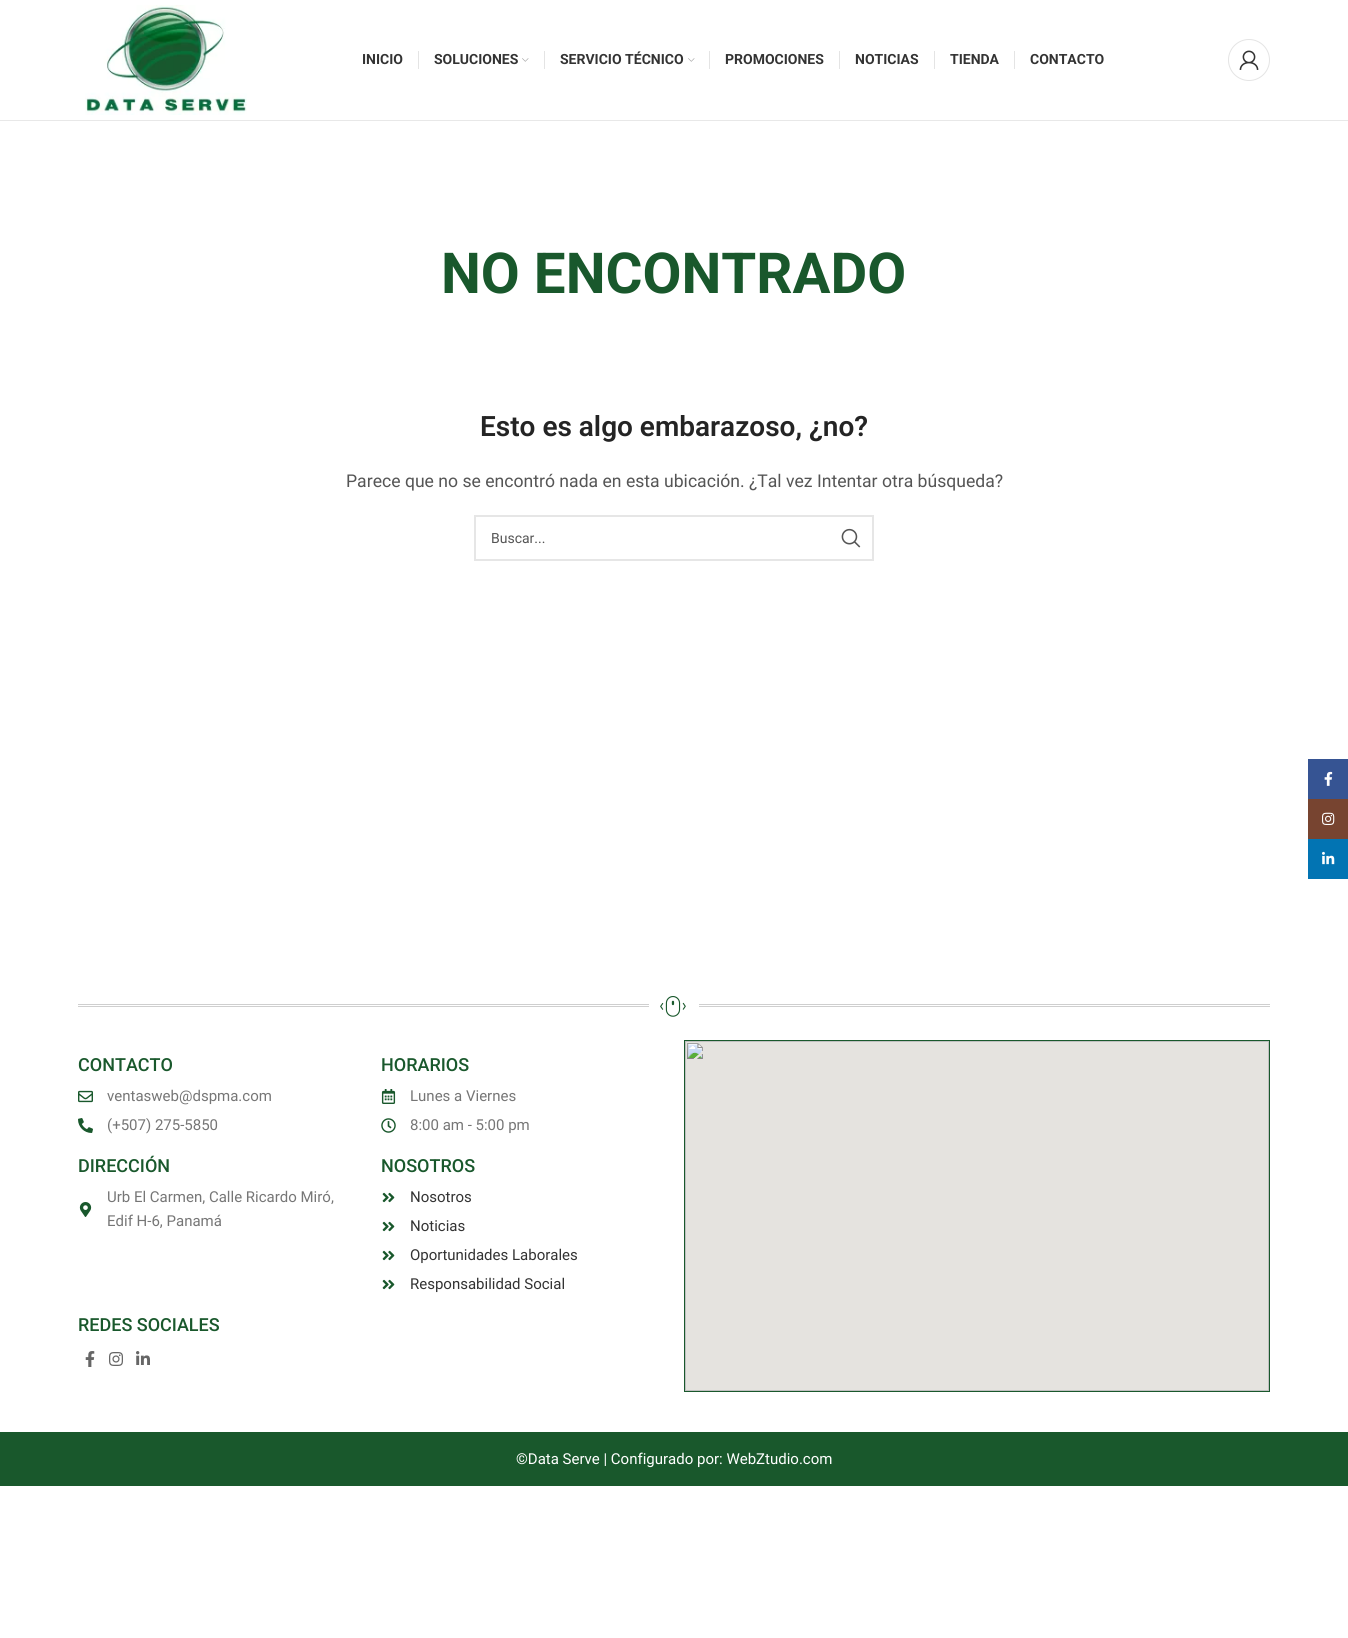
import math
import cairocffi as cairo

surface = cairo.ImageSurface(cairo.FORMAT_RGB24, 1348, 1638)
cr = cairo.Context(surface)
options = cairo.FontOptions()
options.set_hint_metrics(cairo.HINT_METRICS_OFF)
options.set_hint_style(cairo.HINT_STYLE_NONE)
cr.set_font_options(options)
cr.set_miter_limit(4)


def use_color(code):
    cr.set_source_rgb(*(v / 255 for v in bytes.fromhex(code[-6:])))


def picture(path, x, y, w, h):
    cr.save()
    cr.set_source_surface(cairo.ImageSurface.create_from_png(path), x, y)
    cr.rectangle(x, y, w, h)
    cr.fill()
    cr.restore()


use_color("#ffffff")
cr.paint()
use_color("#e8e8e8")
cr.rectangle(0, 120, 1348, 1)
cr.fill()
picture("img1.png", 85, 5, 162, 110)
cr.select_font_face("Roboto", cairo.FONT_SLANT_NORMAL, cairo.FONT_WEIGHT_BOLD)
cr.set_font_size(14)
use_color("#333333")
cr.move_to(362, 64)
cr.show_text("INICIO")
use_color("#e4e4e4")
cr.rectangle(418, 51, 1, 18)
cr.fill()
use_color("#333333")
cr.move_to(434, 64)
cr.show_text("SOLUCIONES")
picture("img2.png", 522, 58, 7, 4)
use_color("#e4e4e4")
cr.rectangle(544, 51, 1, 18)
cr.fill()
use_color("#333333")
cr.move_to(560, 64)
cr.show_text("SERVICIO TÉCNICO")
picture("img2.png", 688, 58, 7, 4)
use_color("#e4e4e4")
cr.rectangle(709, 51, 1, 18)
cr.fill()
use_color("#333333")
cr.move_to(725, 64)
cr.show_text("PROMOCIONES")
use_color("#e4e4e4")
cr.rectangle(839, 51, 1, 18)
cr.fill()
use_color("#333333")
cr.move_to(855, 64)
cr.show_text("NOTICIAS")
use_color("#e4e4e4")
cr.rectangle(934, 51, 1, 18)
cr.fill()
use_color("#333333")
cr.move_to(950, 64)
cr.show_text("TIENDA")
use_color("#e4e4e4")
cr.rectangle(1014, 51, 1, 18)
cr.fill()
use_color("#333333")
cr.move_to(1030, 64)
cr.show_text("CONTACTO")
cr.new_path()
cr.arc(1249, 60, 20.5, 0, 2 * math.pi)
use_color("#e4e4e4")
cr.set_line_width(1)
cr.stroke()
picture("img3.png", 1239, 50, 20, 20)
cr.set_font_size(56.5)
use_color("#19582c")
cr.move_to(441, 293)
cr.show_text("NO ENCONTRADO")
cr.select_font_face("Roboto SemiBold")
cr.set_font_size(28)
use_color("#242424")
cr.move_to(480, 436)
cr.show_text("Esto es algo embarazoso, ¿no?")
cr.select_font_face("Roboto")
cr.set_font_size(17.6)
use_color("#555555")
cr.move_to(346, 487)
cr.show_text("Parece que no se encontró nada en esta ubicación. ¿Tal vez Intentar otra búsqueda?")
cr.rectangle(475, 516, 398, 44)
use_color("#e6e6e6")
cr.set_line_width(2)
cr.stroke()
cr.set_font_size(14)
use_color("#555555")
cr.move_to(491, 543)
cr.show_text("Buscar...")
picture("img4.png", 841, 528, 20, 20)
use_color("#cfcfcf")
cr.rectangle(78, 1004, 571, 1)
cr.fill()
cr.rectangle(78, 1006, 571, 1)
cr.fill()
picture("img5.png", 660, 996, 26, 21)
cr.rectangle(699, 1004, 571, 1)
cr.fill()
cr.rectangle(699, 1006, 571, 1)
cr.fill()
cr.select_font_face("Roboto Medium")
cr.set_font_size(18)
use_color("#19582c")
cr.move_to(78, 1071)
cr.show_text("CONTACTO")
picture("img6.png", 78, 1090, 15, 13)
cr.select_font_face("Roboto")
cr.set_font_size(15)
use_color("#767676")
cr.move_to(107, 1101)
cr.show_text("ventasweb@dspma.com")
picture("img7.png", 78, 1118, 15, 15)
cr.move_to(107, 1130)
cr.show_text("(+507) 275-5850")
cr.select_font_face("Roboto Medium")
cr.set_font_size(18)
use_color("#19582c")
cr.move_to(381, 1071)
cr.show_text("HORARIOS")
picture("img8.png", 381, 1089, 15, 15)
cr.select_font_face("Roboto")
cr.set_font_size(15)
use_color("#767676")
cr.move_to(410, 1101)
cr.show_text("Lunes a Viernes")
picture("img9.png", 381, 1118, 15, 15)
cr.move_to(410, 1130)
cr.show_text("8:00 am - 5:00 pm")
cr.select_font_face("Roboto Medium")
cr.set_font_size(18)
use_color("#19582c")
cr.move_to(78, 1172)
cr.show_text("DIRECCIÓN")
picture("img10.png", 79, 1202, 13, 15)
cr.select_font_face("Roboto")
cr.set_font_size(15)
use_color("#767676")
cr.move_to(107, 1202)
cr.show_text("Urb El Carmen, Calle Ricardo Miró,")
cr.move_to(107, 1226)
cr.show_text("Edif H-6, Panamá")
cr.select_font_face("Roboto Medium")
cr.set_font_size(18)
use_color("#19582c")
cr.move_to(381, 1172)
cr.show_text("NOSOTROS")
picture("img11.png", 382, 1192, 13, 11)
cr.select_font_face("Roboto")
cr.set_font_size(15)
use_color("#333333")
cr.move_to(410, 1202)
cr.show_text("Nosotros")
picture("img11.png", 382, 1221, 13, 11)
cr.move_to(410, 1231)
cr.show_text("Noticias")
picture("img11.png", 382, 1250, 13, 11)
cr.move_to(410, 1260)
cr.show_text("Oportunidades Laborales")
picture("img11.png", 382, 1279, 13, 11)
cr.move_to(410, 1289)
cr.show_text("Responsabilidad Social")
cr.select_font_face("Roboto Medium")
cr.set_font_size(18)
use_color("#19582c")
cr.move_to(78, 1331)
cr.show_text("REDES SOCIALES")
picture("img12.png", 85, 1351, 10, 16)
picture("img13.png", 109, 1352, 14, 14)
picture("img14.png", 136, 1351, 14, 14)
cr.rectangle(684.5, 1040.5, 585, 351)
cr.set_line_width(1)
cr.stroke()
picture("img15.png", 685, 1041, 584, 350)
cr.rectangle(0, 1432, 1348, 54)
cr.fill()
cr.select_font_face("Roboto")
cr.set_font_size(15)
use_color("#ffffff")
cr.move_to(516, 1464)
cr.show_text("©Data Serve | Configurado por: WebZtudio.com")
use_color("#365493")
cr.rectangle(1308, 759, 40, 40)
cr.fill()
picture("img16.png", 1324, 771, 9, 15)
use_color("#774430")
cr.rectangle(1308, 799, 40, 40)
cr.fill()
picture("img17.png", 1322, 812, 13, 13)
use_color("#0274b3")
cr.rectangle(1308, 839, 40, 40)
cr.fill()
picture("img18.png", 1322, 851, 13, 14)
surface.write_to_png("result.png")
